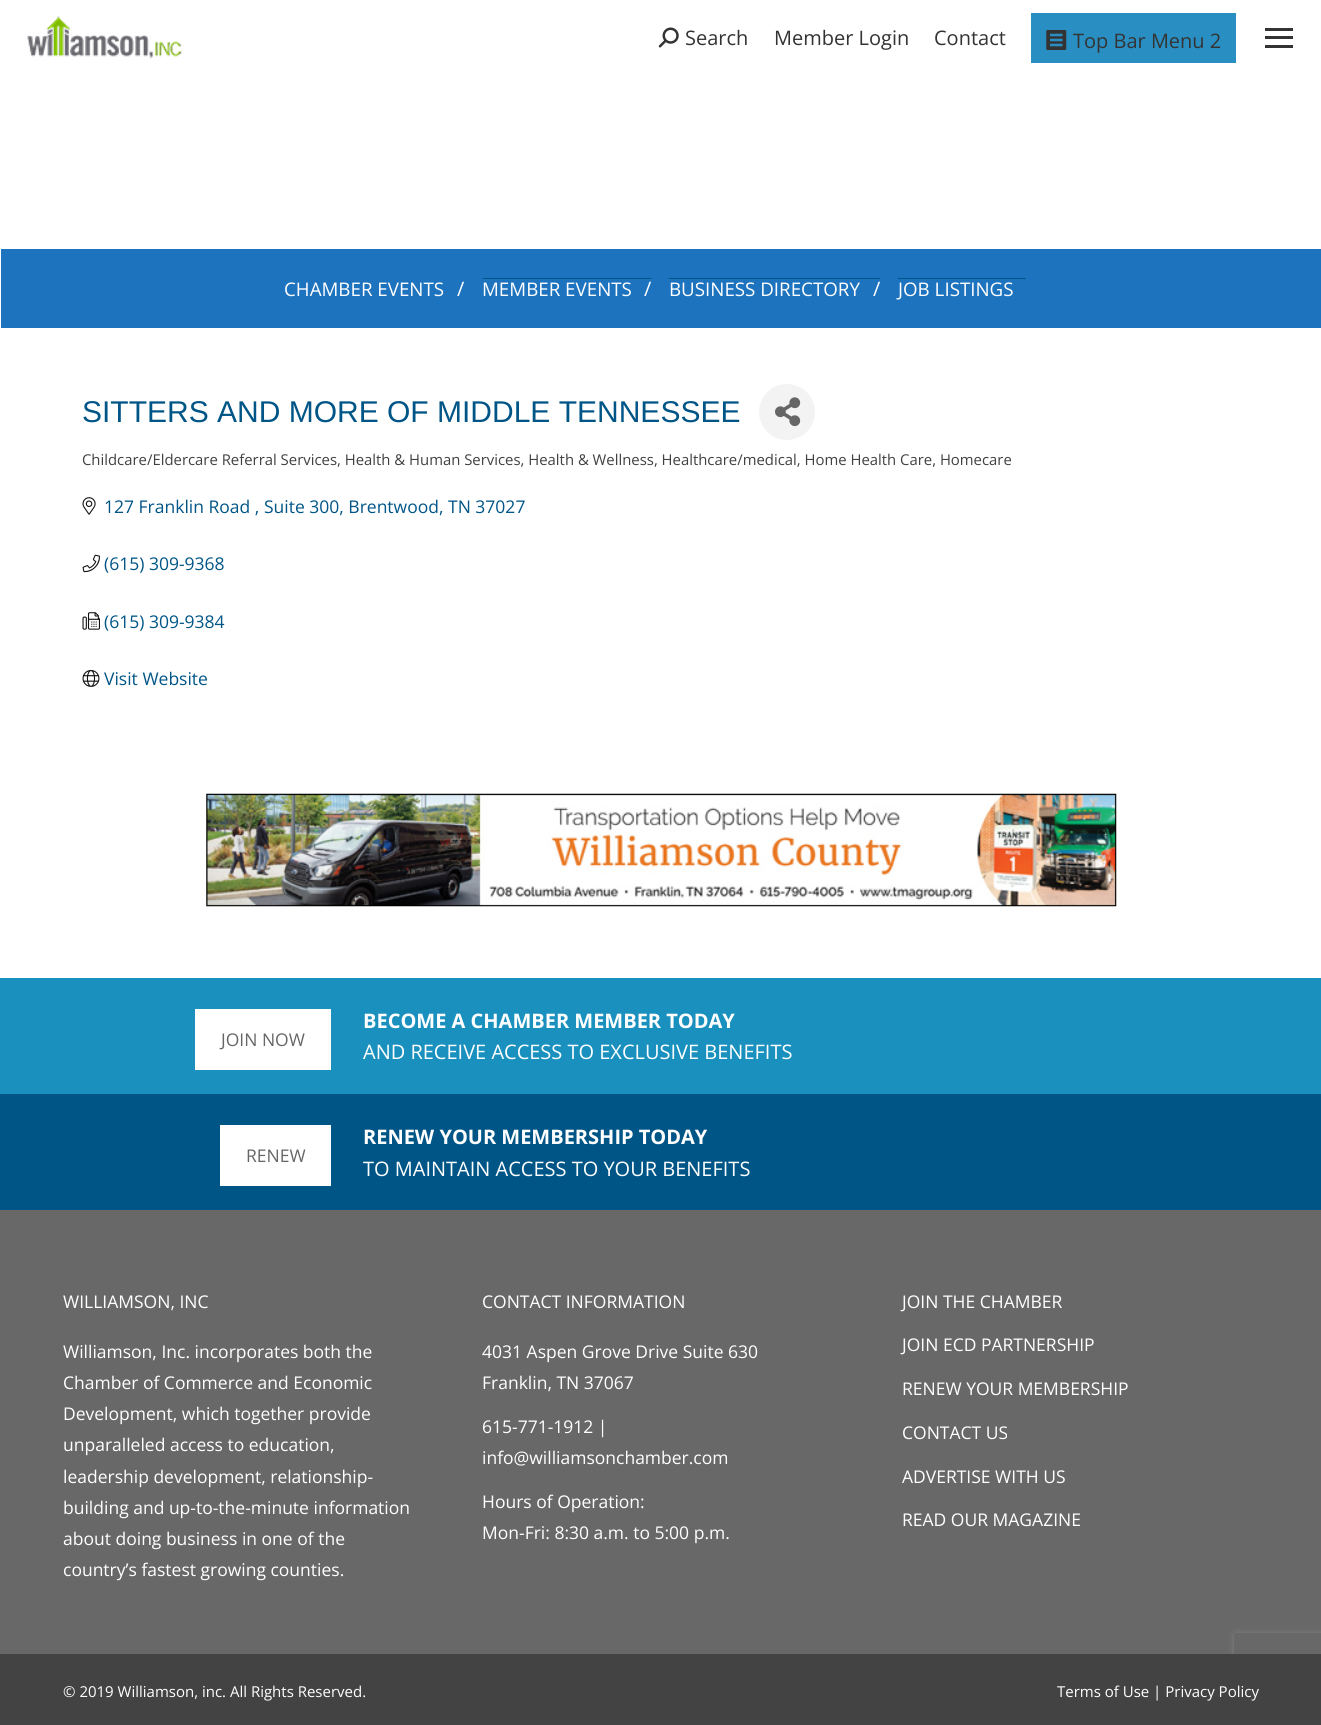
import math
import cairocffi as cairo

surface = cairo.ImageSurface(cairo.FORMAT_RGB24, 1321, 1725)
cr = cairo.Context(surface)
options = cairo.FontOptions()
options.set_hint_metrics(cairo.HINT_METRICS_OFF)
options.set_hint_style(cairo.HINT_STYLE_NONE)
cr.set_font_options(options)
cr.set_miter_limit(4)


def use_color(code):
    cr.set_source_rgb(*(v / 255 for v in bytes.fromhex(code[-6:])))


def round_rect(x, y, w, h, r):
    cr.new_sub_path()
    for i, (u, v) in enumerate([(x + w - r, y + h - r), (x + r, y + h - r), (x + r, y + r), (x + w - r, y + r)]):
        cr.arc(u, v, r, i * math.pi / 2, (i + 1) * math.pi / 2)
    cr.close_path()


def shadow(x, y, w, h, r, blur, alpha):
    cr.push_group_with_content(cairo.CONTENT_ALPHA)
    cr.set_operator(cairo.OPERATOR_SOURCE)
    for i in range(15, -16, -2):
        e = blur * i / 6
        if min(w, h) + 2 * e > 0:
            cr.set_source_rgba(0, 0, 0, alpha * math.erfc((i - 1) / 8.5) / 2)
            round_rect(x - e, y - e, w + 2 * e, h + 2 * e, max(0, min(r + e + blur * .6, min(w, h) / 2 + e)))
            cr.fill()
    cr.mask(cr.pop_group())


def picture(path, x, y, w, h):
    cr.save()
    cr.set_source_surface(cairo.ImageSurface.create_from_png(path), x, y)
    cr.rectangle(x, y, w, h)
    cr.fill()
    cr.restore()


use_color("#ffffff")
cr.paint()
picture("img1.png", 27, 16, 155, 43)
picture("img2.png", 658, 27, 21, 21)
cr.select_font_face("Open Sans")
cr.set_font_size(20)
use_color("#333333")
cr.move_to(685, 45)
cr.show_text("Search")
cr.move_to(774, 45)
cr.show_text("Member Login")
cr.move_to(934, 45)
cr.show_text("Contact")
use_color("#298fc2")
cr.rectangle(1031, 13, 205, 50)
cr.fill()
picture("img3.png", 1046, 30, 21, 20)
use_color("#333333")
cr.move_to(1073, 48)
cr.show_text("Top Bar Menu 2")
cr.rectangle(1265, 28, 28, 3)
cr.fill()
cr.rectangle(1265, 36, 28, 3)
cr.fill()
cr.rectangle(1265, 45, 28, 3)
cr.fill()
use_color("#1e73be")
cr.rectangle(1, 249, 1320, 79)
cr.fill()
cr.set_font_size(18.75)
use_color("#ffffff")
cr.move_to(284, 296)
cr.show_text("CHAMBER EVENTS")
cr.set_font_size(20)
cr.move_to(457, 296)
cr.show_text("/")
use_color("#005587")
cr.rectangle(483, 278, 168, 1)
cr.fill()
cr.set_font_size(18.75)
use_color("#ffffff")
cr.move_to(482, 296)
cr.show_text("MEMBER EVENTS")
cr.set_font_size(20)
cr.move_to(644, 296)
cr.show_text("/")
use_color("#005587")
cr.rectangle(669, 278, 211, 1)
cr.fill()
cr.set_font_size(18.75)
use_color("#ffffff")
cr.move_to(669, 296)
cr.show_text("BUSINESS DIRECTORY")
cr.set_font_size(20)
cr.move_to(873, 296)
cr.show_text("/")
use_color("#005587")
cr.rectangle(898, 278, 128, 1)
cr.fill()
cr.set_font_size(18.75)
use_color("#ffffff")
cr.move_to(898, 296)
cr.show_text("JOB LISTINGS")
cr.select_font_face("Liberation Sans")
cr.set_font_size(30)
use_color("#005587")
cr.move_to(82, 422)
cr.show_text("SITTERS AND MORE OF MIDDLE TENNESSEE")
use_color("#f3f3f3")
cr.new_path()
cr.arc(787, 412, 28, 0, 2 * math.pi)
cr.fill()
picture("img4.png", 775, 397, 26, 30)
cr.select_font_face("Open Sans")
cr.set_font_size(14.88)
use_color("#414141")
cr.move_to(82, 465)
cr.show_text("Childcare/Eldercare Referral Services, Health & Human Services, Health & Wellness, Healthcare/medical, Home Health Care, Homecare")
picture("img5.png", 82, 497, 14, 18)
cr.set_font_size(17.5)
use_color("#005587")
cr.move_to(104, 513)
cr.show_text("127 Franklin Road , Suite 300, Brentwood, TN 37027")
picture("img6.png", 82, 554, 18, 19)
cr.move_to(104, 570)
cr.show_text("(615) 309-9368")
picture("img7.png", 82, 612, 18, 18)
cr.move_to(104, 628)
cr.show_text("(615) 309-9384")
picture("img8.png", 82, 670, 18, 17)
cr.move_to(104, 685)
cr.show_text("Visit Website")
picture("img9.png", 206, 793, 911, 114)
use_color("#1990be")
cr.rectangle(0, 978, 1321, 116)
cr.fill()
use_color("#ffffff")
cr.rectangle(195, 1009, 136, 61)
cr.fill()
use_color("#666666")
cr.move_to(221, 1046)
cr.show_text("JOIN NOW")
cr.select_font_face("Open Sans", cairo.FONT_SLANT_NORMAL, cairo.FONT_WEIGHT_BOLD)
cr.set_font_size(20)
use_color("#ffffff")
cr.move_to(363, 1028)
cr.show_text("BECOME A CHAMBER MEMBER TODAY")
cr.select_font_face("Open Sans")
cr.move_to(363, 1059)
cr.show_text("AND RECEIVE ACCESS TO EXCLUSIVE BENEFITS")
use_color("#005587")
cr.rectangle(0, 1094, 1321, 116)
cr.fill()
use_color("#ffffff")
cr.rectangle(220, 1125, 111, 61)
cr.fill()
cr.set_font_size(17.5)
use_color("#666666")
cr.move_to(246, 1162)
cr.show_text("RENEW")
cr.select_font_face("Open Sans", cairo.FONT_SLANT_NORMAL, cairo.FONT_WEIGHT_BOLD)
cr.set_font_size(20)
use_color("#ffffff")
cr.move_to(363, 1144)
cr.show_text("RENEW YOUR MEMBERSHIP TODAY")
cr.select_font_face("Open Sans")
cr.move_to(363, 1176)
cr.show_text("TO MAINTAIN ACCESS TO YOUR BENEFITS")
use_color("#686868")
cr.rectangle(0, 1210, 1321, 444)
cr.fill()
cr.set_font_size(17.5)
use_color("#ffffff")
cr.move_to(63, 1308)
cr.show_text("WILLIAMSON, INC")
cr.move_to(63, 1358)
cr.show_text("Williamson, Inc. incorporates both the")
cr.move_to(63, 1389)
cr.show_text("Chamber of Commerce and Economic")
cr.move_to(63, 1420)
cr.show_text("Development, which together provide")
cr.move_to(63, 1451)
cr.show_text("unparalleled access to education,")
cr.move_to(63, 1483)
cr.show_text("leadership development, relationship-")
cr.move_to(63, 1514)
cr.show_text("building and up-to-the-minute information")
cr.move_to(63, 1545)
cr.show_text("about doing business in one of the")
cr.move_to(63, 1576)
cr.show_text("country’s fastest growing counties.")
cr.move_to(482, 1308)
cr.show_text("CONTACT INFORMATION")
cr.move_to(482, 1358)
cr.show_text("4031 Aspen Grove Drive Suite 630")
cr.move_to(482, 1389)
cr.show_text("Franklin, TN 37067")
cr.move_to(482, 1433)
cr.show_text("615-771-1912 |")
cr.move_to(482, 1464)
cr.show_text("info@williamsonchamber.com")
cr.move_to(482, 1508)
cr.show_text("Hours of Operation:")
cr.move_to(482, 1539)
cr.show_text("Mon-Fri: 8:30 a.m. to 5:00 p.m.")
cr.move_to(902, 1308)
cr.show_text("JOIN THE CHAMBER")
cr.move_to(902, 1351)
cr.show_text("JOIN ECD PARTNERSHIP")
cr.move_to(902, 1395)
cr.show_text("RENEW YOUR MEMBERSHIP")
cr.move_to(902, 1439)
cr.show_text("CONTACT US")
cr.move_to(902, 1483)
cr.show_text("ADVERTISE WITH US")
cr.move_to(902, 1526)
cr.show_text("READ OUR MAGAZINE")
cr.save()
cr.set_fill_rule(cairo.FILL_RULE_EVEN_ODD)
cr.new_path()
cr.move_to(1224, 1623)
cr.line_to(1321, 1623)
cr.line_to(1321, 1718)
cr.line_to(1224, 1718)
cr.close_path()
cr.move_to(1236.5, 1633)
cr.line_to(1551.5, 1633)
cr.curve_to(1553, 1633, 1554, 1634, 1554, 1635.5)
cr.line_to(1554, 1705.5)
cr.curve_to(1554, 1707, 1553, 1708, 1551.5, 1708)
cr.line_to(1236.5, 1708)
cr.curve_to(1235, 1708, 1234, 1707, 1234, 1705.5)
cr.line_to(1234, 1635.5)
cr.curve_to(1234, 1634, 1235, 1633, 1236.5, 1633)
cr.close_path()
cr.clip()
use_color("#808080")
shadow(1234, 1633, 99, 75, 2.5, 3, 1)
cr.restore()
use_color("#434343")
cr.rectangle(0, 1654, 1321, 71)
cr.fill()
cr.set_font_size(15)
use_color("#ffffff")
cr.move_to(63, 1697)
cr.show_text("© 2019 Williamson, inc. All Rights Reserved.")
cr.move_to(1057, 1697)
cr.show_text("Terms of Use | Privacy Policy")
surface.write_to_png("result.png")
